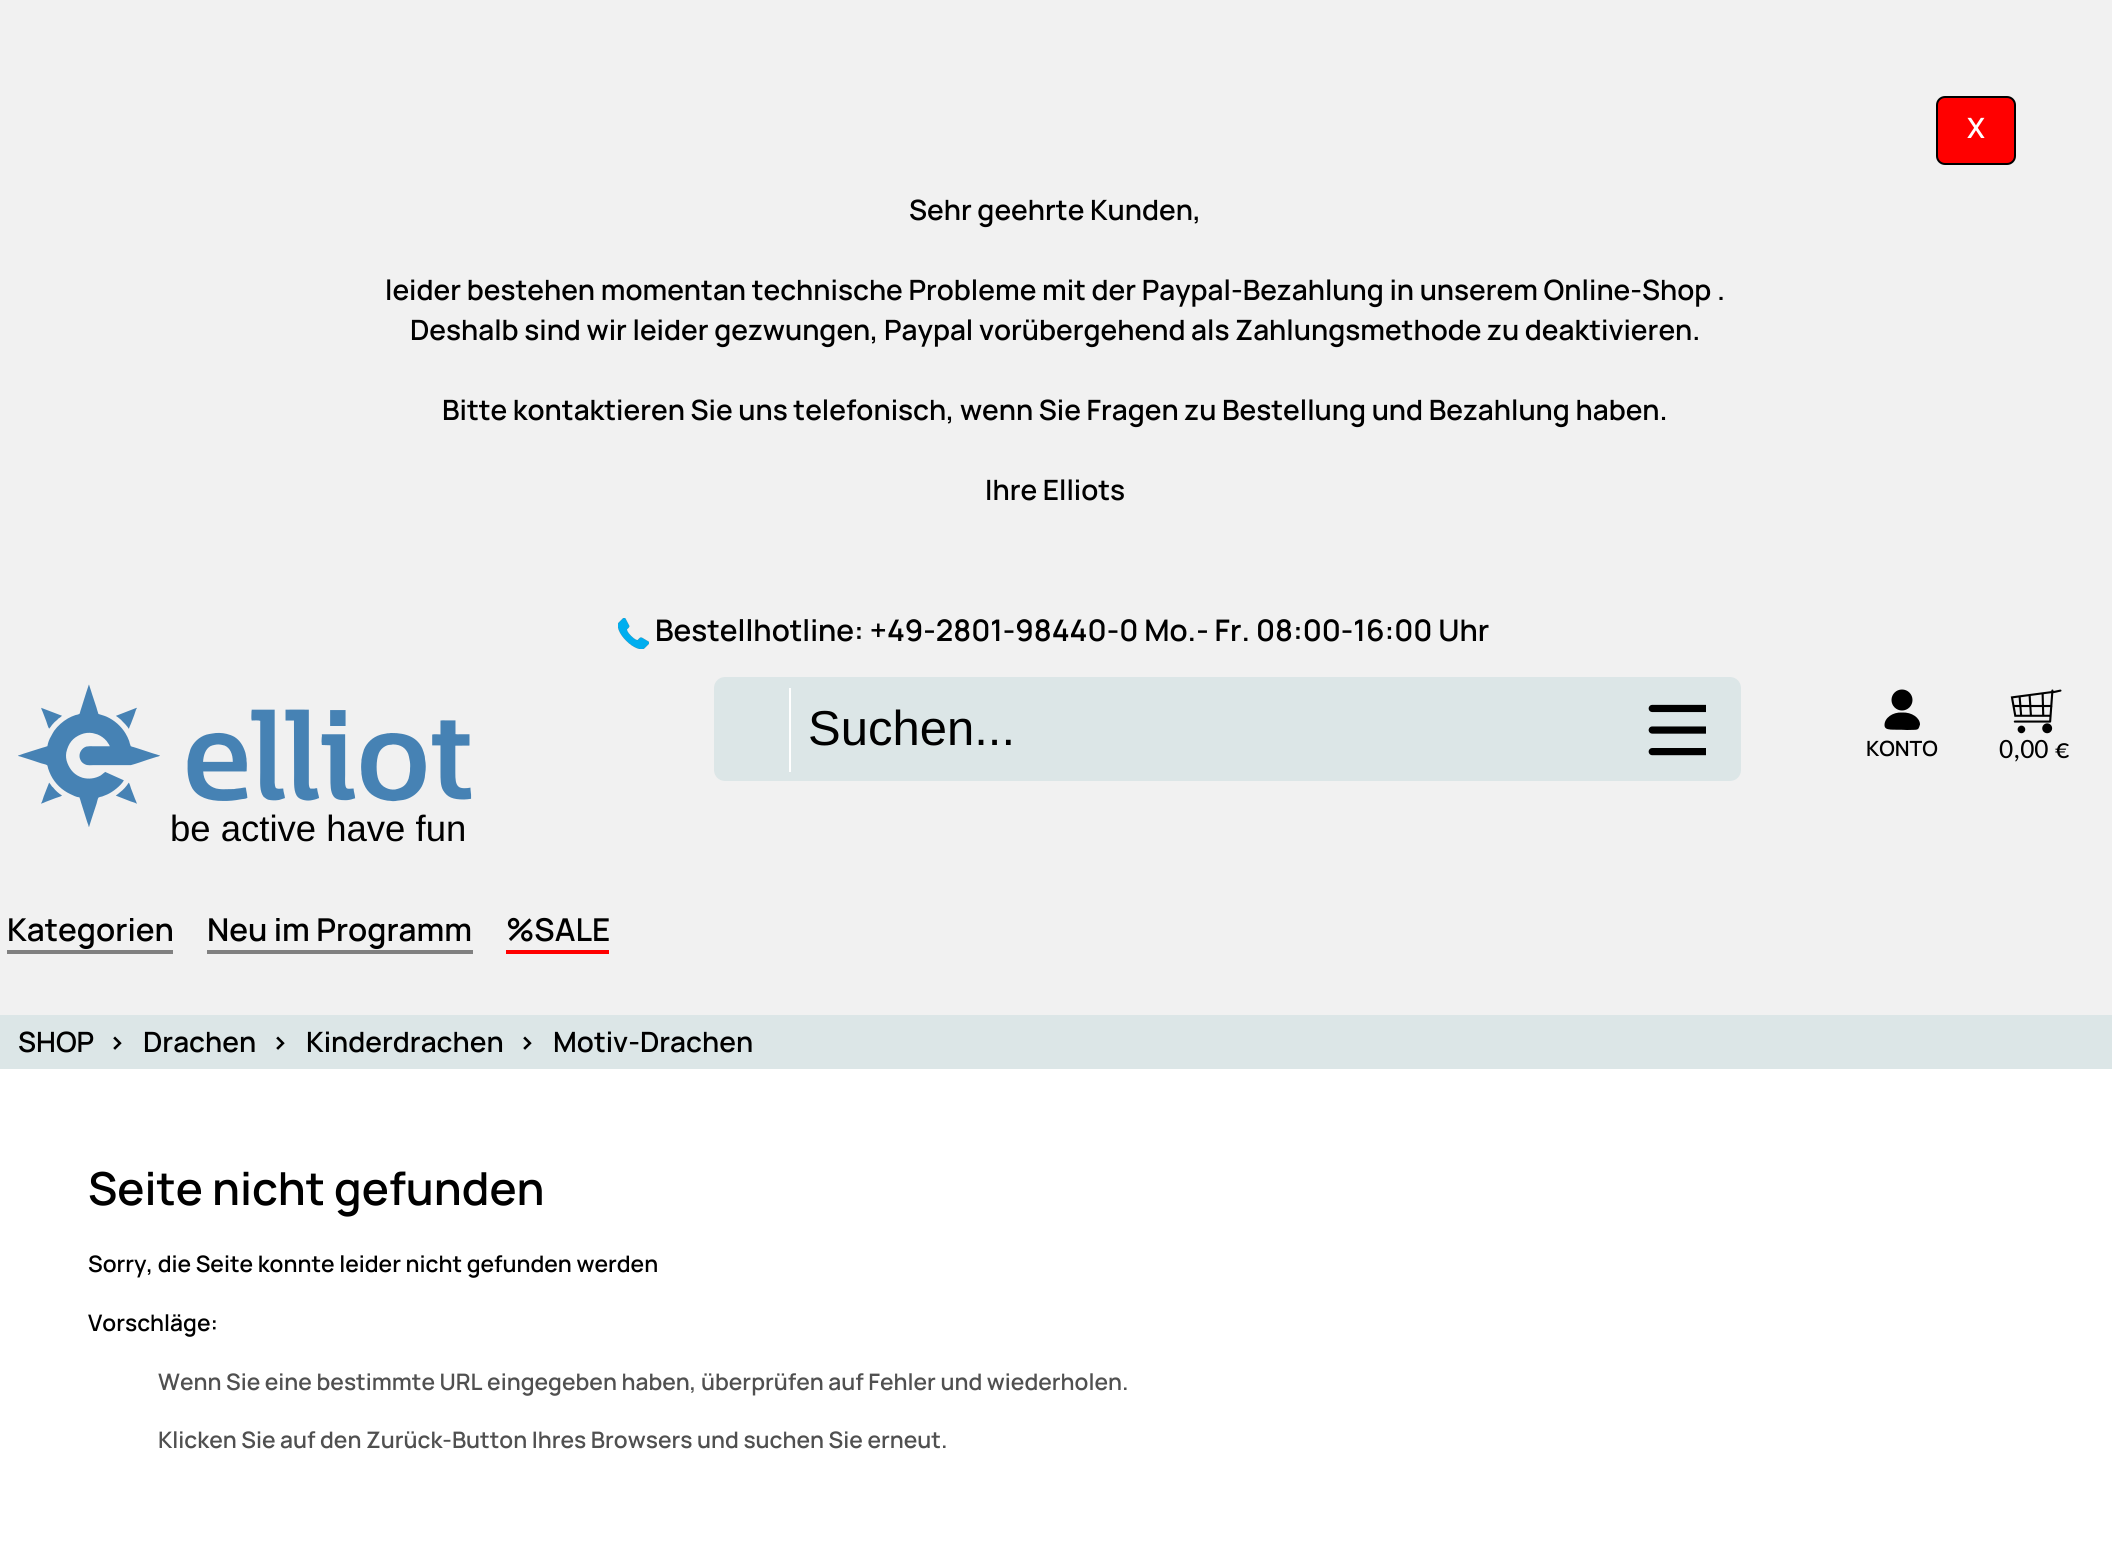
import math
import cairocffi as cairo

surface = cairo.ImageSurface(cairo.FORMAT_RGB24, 2112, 1552)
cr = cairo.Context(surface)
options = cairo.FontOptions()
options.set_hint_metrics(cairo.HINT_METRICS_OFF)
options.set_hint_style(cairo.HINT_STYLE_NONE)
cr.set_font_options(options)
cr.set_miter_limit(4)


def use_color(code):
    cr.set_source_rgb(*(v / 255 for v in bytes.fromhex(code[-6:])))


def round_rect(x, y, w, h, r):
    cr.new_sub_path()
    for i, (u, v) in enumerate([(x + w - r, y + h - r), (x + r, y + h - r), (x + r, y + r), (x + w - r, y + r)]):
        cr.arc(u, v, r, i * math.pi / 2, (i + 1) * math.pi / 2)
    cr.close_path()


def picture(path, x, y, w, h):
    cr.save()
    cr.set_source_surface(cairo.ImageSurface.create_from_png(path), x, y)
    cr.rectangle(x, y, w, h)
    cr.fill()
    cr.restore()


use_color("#f1f1f1")
cr.paint()
use_color("#ff0000")
round_rect(1937, 97, 78, 67, 8)
cr.fill_preserve()
use_color("#000000")
cr.stroke()
cr.select_font_face("Manrope SemiBold")
cr.set_font_size(28)
use_color("#ffffff")
cr.move_to(1967, 138)
cr.show_text("X")
use_color("#000000")
cr.move_to(909, 220)
cr.show_text("Sehr geehrte Kunden,")
cr.move_to(385, 300)
cr.show_text("leider bestehen momentan technische Probleme mit der Paypal-Bezahlung in unserem Online-Shop .")
cr.move_to(410, 340)
cr.show_text("Deshalb sind wir leider gezwungen, Paypal vorübergehend als Zahlungsmethode zu deaktivieren.")
cr.move_to(442, 420)
cr.show_text("Bitte kontaktieren Sie uns telefonisch, wenn Sie Fragen zu Bestellung und Bezahlung haben.")
cr.move_to(985, 500)
cr.show_text("Ihre Elliots")
picture("img1.png", 618, 618, 31, 31)
cr.set_font_size(29.75)
cr.move_to(655, 641)
cr.show_text("Bestellhotline: +49-2801-98440-0 Mo.- Fr. 08:00-16:00 Uhr")
use_color("#dce6e7")
round_rect(714, 677, 1027, 104, 11)
cr.fill()
use_color("#ffffff")
cr.rectangle(789, 688, 2, 84)
cr.fill()
cr.select_font_face("Liberation Sans")
cr.set_font_size(49)
use_color("#000000")
cr.move_to(808, 745)
cr.show_text("Suchen...")
picture("img2.png", 1648, 704, 58, 52)
cr.select_font_face("Manrope SemiBold")
cr.set_font_size(21)
cr.move_to(1866, 756)
cr.show_text("KONTO")
cr.set_fill_rule(cairo.FILL_RULE_EVEN_ODD)
cr.new_path()
cr.move_to(1920, 724.5)
cr.curve_to(1918, 731, 1918.5, 729.5, 1907, 730)
cr.curve_to(1893, 729, 1884.5, 731.5, 1884.5, 725)
cr.curve_to(1884.5, 718, 1892.5, 712, 1902, 712.5)
cr.curve_to(1912, 712, 1920, 718, 1920, 724.5)
cr.close_path()
cr.fill()
cr.arc(1902, 700, 10.5, 0, 2 * math.pi)
cr.fill()
picture("img3.png", 2010, 689, 52, 45)
cr.select_font_face("Carlito")
cr.set_font_size(28)
cr.move_to(1999, 758)
cr.show_text("0,00 €")
picture("img4.png", 18, 684, 454, 143)
cr.select_font_face("Liberation Sans")
cr.set_font_size(36.5)
cr.move_to(170, 841)
cr.show_text("be active have fun")
cr.select_font_face("Manrope SemiBold")
cr.set_font_size(31.5)
cr.move_to(7, 941)
cr.show_text("Kategorien")
use_color("#808080")
cr.rectangle(7, 950, 166, 4)
cr.fill()
use_color("#000000")
cr.move_to(207, 941)
cr.show_text("Neu im Programm")
use_color("#808080")
cr.rectangle(207, 950, 266, 4)
cr.fill()
use_color("#000000")
cr.move_to(506, 941)
cr.show_text("%SALE")
use_color("#ff0000")
cr.rectangle(506, 950, 103, 4)
cr.fill()
use_color("#dce6e7")
cr.rectangle(0, 1015, 2112, 54)
cr.fill()
cr.set_font_size(28)
use_color("#000000")
cr.move_to(18, 1052)
cr.show_text("SHOP")
cr.move_to(108, 1052)
cr.show_text(">")
cr.move_to(143, 1052)
cr.show_text("Drachen")
cr.move_to(271, 1052)
cr.show_text(">")
cr.move_to(306, 1052)
cr.show_text("Kinderdrachen")
cr.move_to(518, 1052)
cr.show_text(">")
cr.move_to(553, 1052)
cr.show_text("Motiv-Drachen")
use_color("#ffffff")
cr.rectangle(0, 1069, 2112, 483)
cr.fill()
cr.set_font_size(45.5)
use_color("#000000")
cr.move_to(88, 1205)
cr.show_text("Seite nicht gefunden")
cr.set_font_size(22.75)
cr.move_to(88, 1272)
cr.show_text("Sorry, die Seite konnte leider nicht gefunden werden")
cr.move_to(88, 1331)
cr.show_text("Vorschläge:")
use_color("#505050")
cr.move_to(158, 1390)
cr.show_text("Wenn Sie eine bestimmte URL eingegeben haben, überprüfen auf Fehler und wiederholen.")
cr.move_to(158, 1448)
cr.show_text("Klicken Sie auf den Zurück-Button Ihres Browsers und suchen Sie erneut.")
surface.write_to_png("result.png")
